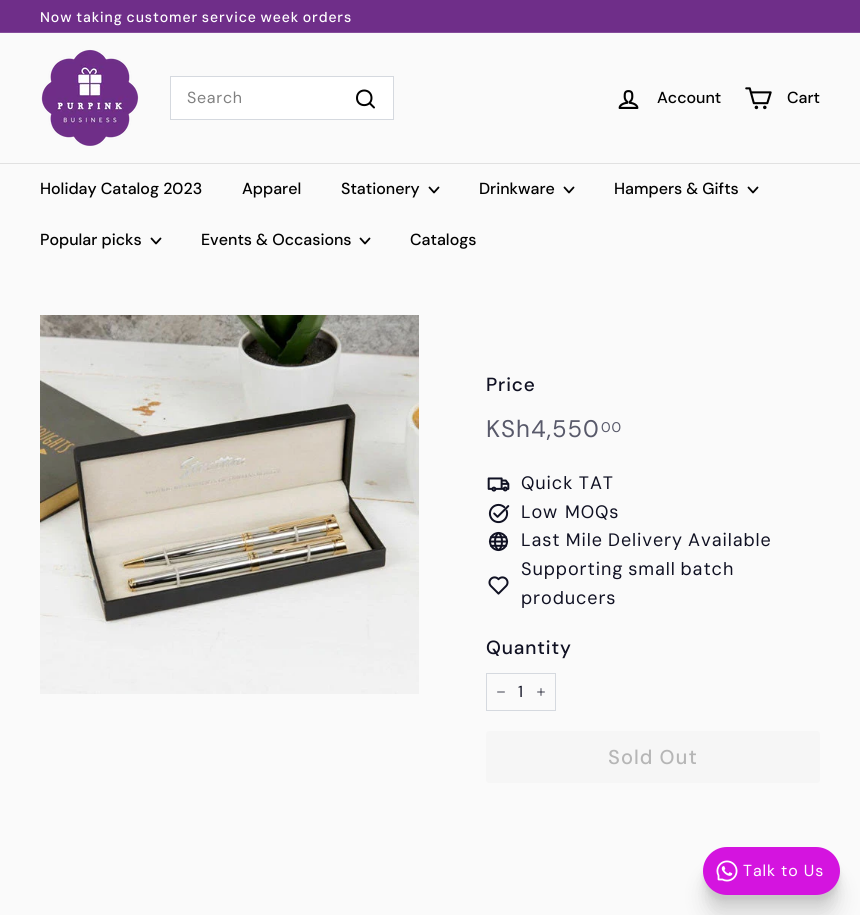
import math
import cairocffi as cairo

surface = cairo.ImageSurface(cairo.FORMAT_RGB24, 860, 915)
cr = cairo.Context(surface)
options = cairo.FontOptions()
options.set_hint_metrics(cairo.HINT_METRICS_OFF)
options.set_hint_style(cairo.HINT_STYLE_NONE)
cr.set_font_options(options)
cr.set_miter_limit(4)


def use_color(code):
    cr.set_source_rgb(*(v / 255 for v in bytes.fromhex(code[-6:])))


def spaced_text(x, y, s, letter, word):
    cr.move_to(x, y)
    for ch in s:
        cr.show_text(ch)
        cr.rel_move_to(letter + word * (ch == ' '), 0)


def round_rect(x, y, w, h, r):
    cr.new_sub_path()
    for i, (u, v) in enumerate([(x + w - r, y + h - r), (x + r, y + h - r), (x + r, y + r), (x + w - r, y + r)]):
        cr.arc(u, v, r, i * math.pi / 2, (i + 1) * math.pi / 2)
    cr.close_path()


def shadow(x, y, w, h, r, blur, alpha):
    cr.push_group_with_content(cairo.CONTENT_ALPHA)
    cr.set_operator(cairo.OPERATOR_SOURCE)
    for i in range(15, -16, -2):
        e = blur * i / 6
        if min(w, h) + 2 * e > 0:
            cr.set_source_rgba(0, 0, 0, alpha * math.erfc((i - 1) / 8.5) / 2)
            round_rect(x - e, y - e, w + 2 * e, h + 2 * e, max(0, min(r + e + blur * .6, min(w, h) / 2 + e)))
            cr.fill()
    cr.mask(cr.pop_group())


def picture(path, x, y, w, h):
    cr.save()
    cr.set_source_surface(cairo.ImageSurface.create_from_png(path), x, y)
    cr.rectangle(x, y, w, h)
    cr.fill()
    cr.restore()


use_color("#fafafa")
cr.paint()
use_color("#6f2e89")
cr.rectangle(0, 0, 860, 32)
cr.fill()
cr.select_font_face("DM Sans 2 Medium")
cr.set_font_size(14)
use_color("#ffffff")
spaced_text(40, 22, "Now taking customer service week orders", 0.9, -0.75)
use_color("#854d9b")
cr.rectangle(0, 32, 860, 1)
cr.fill()
picture("img1.png", 41, 49, 98, 97)
use_color("#ffffff")
cr.rectangle(170.5, 76.5, 223, 43)
cr.fill_preserve()
use_color("#d5d9df")
cr.set_line_width(1)
cr.stroke()
cr.select_font_face("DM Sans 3")
cr.set_font_size(16)
use_color("#808080")
spaced_text(187, 103, "Search", 0.75, 0)
cr.new_path()
cr.move_to(371.5, 98)
cr.curve_to(371.5, 107.5, 357, 107.5, 357, 98)
cr.curve_to(357, 88, 371.5, 88, 371.5, 98)
cr.close_path()
cr.move_to(374, 107.5)
cr.line_to(369.5, 103)
use_color("#000000")
cr.set_line_width(2)
cr.set_line_cap(cairo.LINE_CAP_ROUND)
cr.set_line_join(cairo.LINE_JOIN_ROUND)
cr.stroke()
picture("img2.png", 618, 90, 21, 19)
cr.select_font_face("DM Sans 3 Medium")
cr.move_to(657, 103)
cr.show_text("Account")
picture("img3.png", 745, 87, 27, 23)
cr.move_to(787, 103)
cr.show_text("Cart")
use_color("#e1e1e1")
cr.rectangle(0, 163, 860, 1)
cr.fill()
use_color("#000000")
cr.move_to(40, 194)
cr.show_text("Holiday Catalog 2023")
cr.move_to(242, 194)
cr.show_text("Apparel")
cr.move_to(341, 194)
cr.show_text("Stationery")
cr.new_path()
cr.move_to(429.5, 187.5)
cr.line_to(434, 192.5)
cr.line_to(438.5, 187.5)
cr.set_line_width(1.8)
cr.stroke()
cr.move_to(479, 194)
cr.show_text("Drinkware")
cr.new_path()
cr.move_to(564.5, 187.5)
cr.line_to(569, 192.5)
cr.line_to(573.5, 187.5)
cr.stroke()
cr.move_to(614, 194)
cr.show_text("Hampers & Gifts")
cr.new_path()
cr.move_to(748.5, 187.5)
cr.line_to(753, 192.5)
cr.line_to(757.5, 187.5)
cr.stroke()
cr.move_to(40, 245)
cr.show_text("Popular picks")
cr.new_path()
cr.move_to(151.5, 238.5)
cr.line_to(156, 243.5)
cr.line_to(160.5, 238.5)
cr.stroke()
cr.move_to(201, 245)
cr.show_text("Events & Occasions")
cr.new_path()
cr.move_to(360.5, 238.5)
cr.line_to(365, 243.5)
cr.line_to(369.5, 238.5)
cr.stroke()
cr.move_to(410, 245)
cr.show_text("Catalogs")
picture("img4.png", 40, 315, 379, 379)
cr.select_font_face("DM Sans Medium")
cr.set_font_size(19)
use_color("#101123")
spaced_text(486, 391, "Price", 0.9, 0)
cr.select_font_face("DM Sans")
cr.set_font_size(24)
use_color("#58596a")
spaced_text(486, 437, "KSh4,550", 0.9, 0)
cr.select_font_face("DM Sans 2")
cr.set_font_size(14)
spaced_text(601, 432, "00", 0.9, 0)
picture("img5.png", 487, 477, 23, 15)
cr.select_font_face("DM Sans")
cr.set_font_size(18)
use_color("#101123")
spaced_text(521, 489, "Quick TAT", 0.9, 0)
picture("img6.png", 488, 503, 22, 21)
spaced_text(521, 518, "Low MOQs", 0.9, 1)
picture("img7.png", 488, 531, 21, 21)
spaced_text(521, 546, "Last Mile Delivery Available", 0.9, -0.5)
picture("img8.png", 488, 576, 21, 19)
spaced_text(521, 575, "Supporting small batch", 0.9, -1)
spaced_text(521, 604, "producers", 0.9, 0)
cr.select_font_face("DM Sans Medium")
cr.set_font_size(19)
spaced_text(486, 654, "Quantity", 0.9, 0)
cr.rectangle(486.5, 673.5, 69, 37)
use_color("#d5d9df")
cr.set_line_width(1)
cr.set_line_cap(cairo.LINE_CAP_BUTT)
cr.set_line_join(cairo.LINE_JOIN_MITER)
cr.stroke()
cr.select_font_face("DM Sans 3")
cr.set_font_size(16)
use_color("#101123")
spaced_text(518, 697, "1", 0.75, 0)
cr.new_path()
cr.move_to(504.5, 692)
cr.line_to(497.5, 692)
cr.move_to(541, 688.5)
cr.line_to(541, 695.5)
cr.move_to(544.5, 692)
cr.line_to(537.5, 692)
cr.set_line_width(0.8)
cr.set_line_cap(cairo.LINE_CAP_ROUND)
cr.set_line_join(cairo.LINE_JOIN_ROUND)
cr.stroke()
use_color("#f6f6f6")
round_rect(486, 731, 334, 52, 3)
cr.fill()
cr.select_font_face("DM Sans 2 Medium")
cr.set_font_size(20)
use_color("#b6b6b6")
spaced_text(608, 764, "Sold Out", 1, 0)
use_color("#000000")
shadow(703, 872, 137, 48, 24, 10, 0.1)
shadow(703, 860, 137, 48, 24, 5, 0.06)
shadow(703, 853, 137, 48, 24, 2, 0.06)
use_color("#d414df")
round_rect(703, 847, 137, 48, 24)
cr.fill()
picture("img9.png", 716, 860, 22, 22)
cr.select_font_face("DM Sans 3")
cr.set_font_size(16)
use_color("#ffffff")
spaced_text(743, 876, "Talk to Us", 0.9, 0)
surface.write_to_png("result.png")
